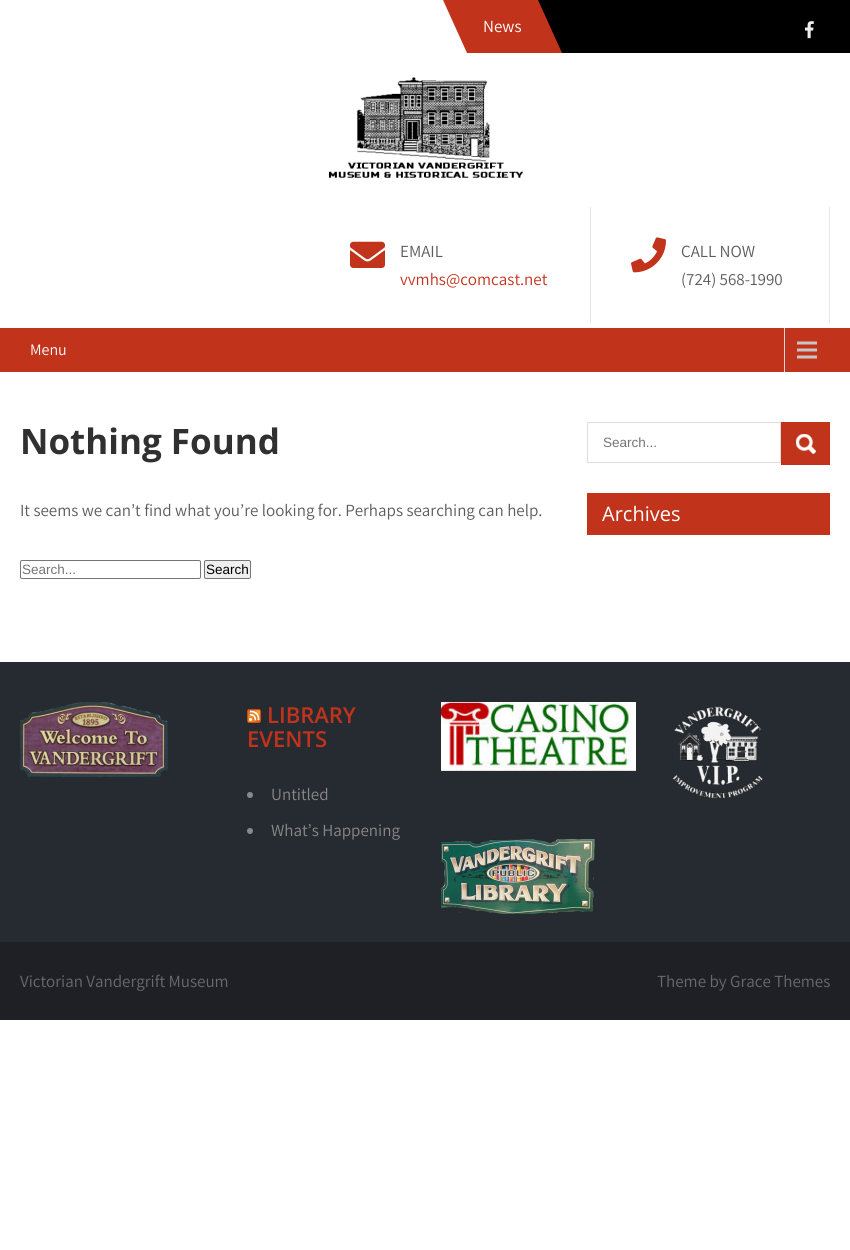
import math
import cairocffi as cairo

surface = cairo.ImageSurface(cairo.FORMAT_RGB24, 850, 1250)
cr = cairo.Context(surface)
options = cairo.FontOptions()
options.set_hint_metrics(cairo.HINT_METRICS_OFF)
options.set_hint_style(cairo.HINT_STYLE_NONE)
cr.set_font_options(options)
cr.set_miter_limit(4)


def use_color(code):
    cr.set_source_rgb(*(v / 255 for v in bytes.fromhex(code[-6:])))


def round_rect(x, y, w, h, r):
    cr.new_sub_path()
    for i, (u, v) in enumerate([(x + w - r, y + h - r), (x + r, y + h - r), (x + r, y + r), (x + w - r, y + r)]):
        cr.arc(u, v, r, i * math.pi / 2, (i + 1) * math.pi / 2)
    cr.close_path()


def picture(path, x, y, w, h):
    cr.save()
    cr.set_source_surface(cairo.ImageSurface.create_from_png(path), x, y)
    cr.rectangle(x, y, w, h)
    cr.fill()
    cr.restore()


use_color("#ffffff")
cr.paint()
use_color("#000000")
cr.rectangle(538, 0, 312, 53)
cr.fill()
use_color("#c1331b")
cr.new_path()
cr.move_to(443, 0)
cr.line_to(538, 0)
cr.line_to(562, 53)
cr.line_to(467, 53)
cr.close_path()
cr.fill()
cr.select_font_face("Assistant")
cr.set_font_size(17)
use_color("#ffffff")
cr.move_to(483, 32)
cr.show_text("News")
picture("img1.png", 805, 21, 9, 18)
picture("img2.png", 328, 77, 196, 101)
picture("img3.png", 350, 241, 35, 27)
use_color("#5c5c5c")
cr.move_to(400, 257)
cr.show_text("EMAIL")
use_color("#c1331b")
cr.move_to(400, 285)
cr.show_text("vvmhs@comcast.net")
use_color("#e5e5e5")
cr.rectangle(829, 207, 1, 116)
cr.fill()
cr.rectangle(590, 207, 1, 116)
cr.fill()
picture("img4.png", 631, 237, 35, 36)
use_color("#5c5c5c")
cr.move_to(681, 257)
cr.show_text("CALL NOW")
cr.move_to(681, 285)
cr.show_text("(724) 568-1990")
use_color("#c1331b")
cr.rectangle(0, 328, 850, 44)
cr.fill()
picture("img5.png", 784, 328, 33, 44)
cr.set_font_size(16)
use_color("#ffffff")
cr.move_to(30, 355)
cr.show_text("Menu")
cr.select_font_face("Open Sans", cairo.FONT_SLANT_NORMAL, cairo.FONT_WEIGHT_BOLD)
cr.set_font_size(35)
use_color("#303030")
cr.move_to(20, 454)
cr.show_text("Nothing Found")
cr.select_font_face("Assistant")
cr.set_font_size(17)
use_color("#5c5c5c")
cr.move_to(20, 516)
cr.show_text("It seems we can’t find what you’re looking for. Perhaps searching can help.")
round_rect(20.5, 560.5, 180, 18, 1.5)
use_color("#767676")
cr.set_line_width(1)
cr.stroke()
cr.select_font_face("Liberation Sans")
cr.set_font_size(13.5)
use_color("#757575")
cr.move_to(22, 574)
cr.show_text("Search...")
use_color("#efefef")
round_rect(204.5, 560.5, 46, 18, 1.5)
cr.fill_preserve()
use_color("#767676")
cr.stroke()
use_color("#000000")
cr.move_to(206, 574)
cr.show_text("Search")
cr.rectangle(587.5, 422.5, 193, 40)
use_color("#dddddd")
cr.stroke()
use_color("#757575")
cr.move_to(603, 447)
cr.show_text("Search...")
use_color("#c1331b")
cr.rectangle(781, 422, 49, 43)
cr.fill()
picture("img6.png", 796, 434, 20, 20)
cr.rectangle(587, 493, 243, 42)
cr.fill()
cr.select_font_face("Open Sans")
cr.set_font_size(20)
use_color("#ffffff")
cr.move_to(602, 521)
cr.show_text("Archives")
use_color("#262a31")
cr.rectangle(0, 662, 850, 280)
cr.fill()
picture("img7.png", 20, 702, 148, 75)
picture("img8.png", 247, 709, 14, 14)
cr.select_font_face("Open Sans SemiBold")
cr.set_font_size(22)
use_color("#c1331b")
cr.move_to(267, 723)
cr.show_text("LIBRARY")
cr.move_to(247, 747)
cr.show_text("EVENTS")
use_color("#8a8989")
cr.new_path()
cr.arc(250, 795, 3, 0, 2 * math.pi)
cr.fill()
cr.select_font_face("Assistant")
cr.set_font_size(17)
cr.move_to(271, 800)
cr.show_text("Untitled")
cr.new_path()
cr.arc(250, 831, 3, 0, 2 * math.pi)
cr.fill()
cr.move_to(271, 836)
cr.show_text("What’s Happening")
picture("img9.png", 441, 702, 195, 69)
picture("img10.png", 441, 839, 154, 75)
picture("img11.png", 672, 706, 91, 93)
use_color("#1e2025")
cr.rectangle(0, 942, 850, 78)
cr.fill()
use_color("#6a6a6a")
cr.move_to(20, 987)
cr.show_text("Victorian Vandergrift Museum")
cr.move_to(657, 987)
cr.show_text("Theme by Grace Themes")
surface.write_to_png("result.png")
